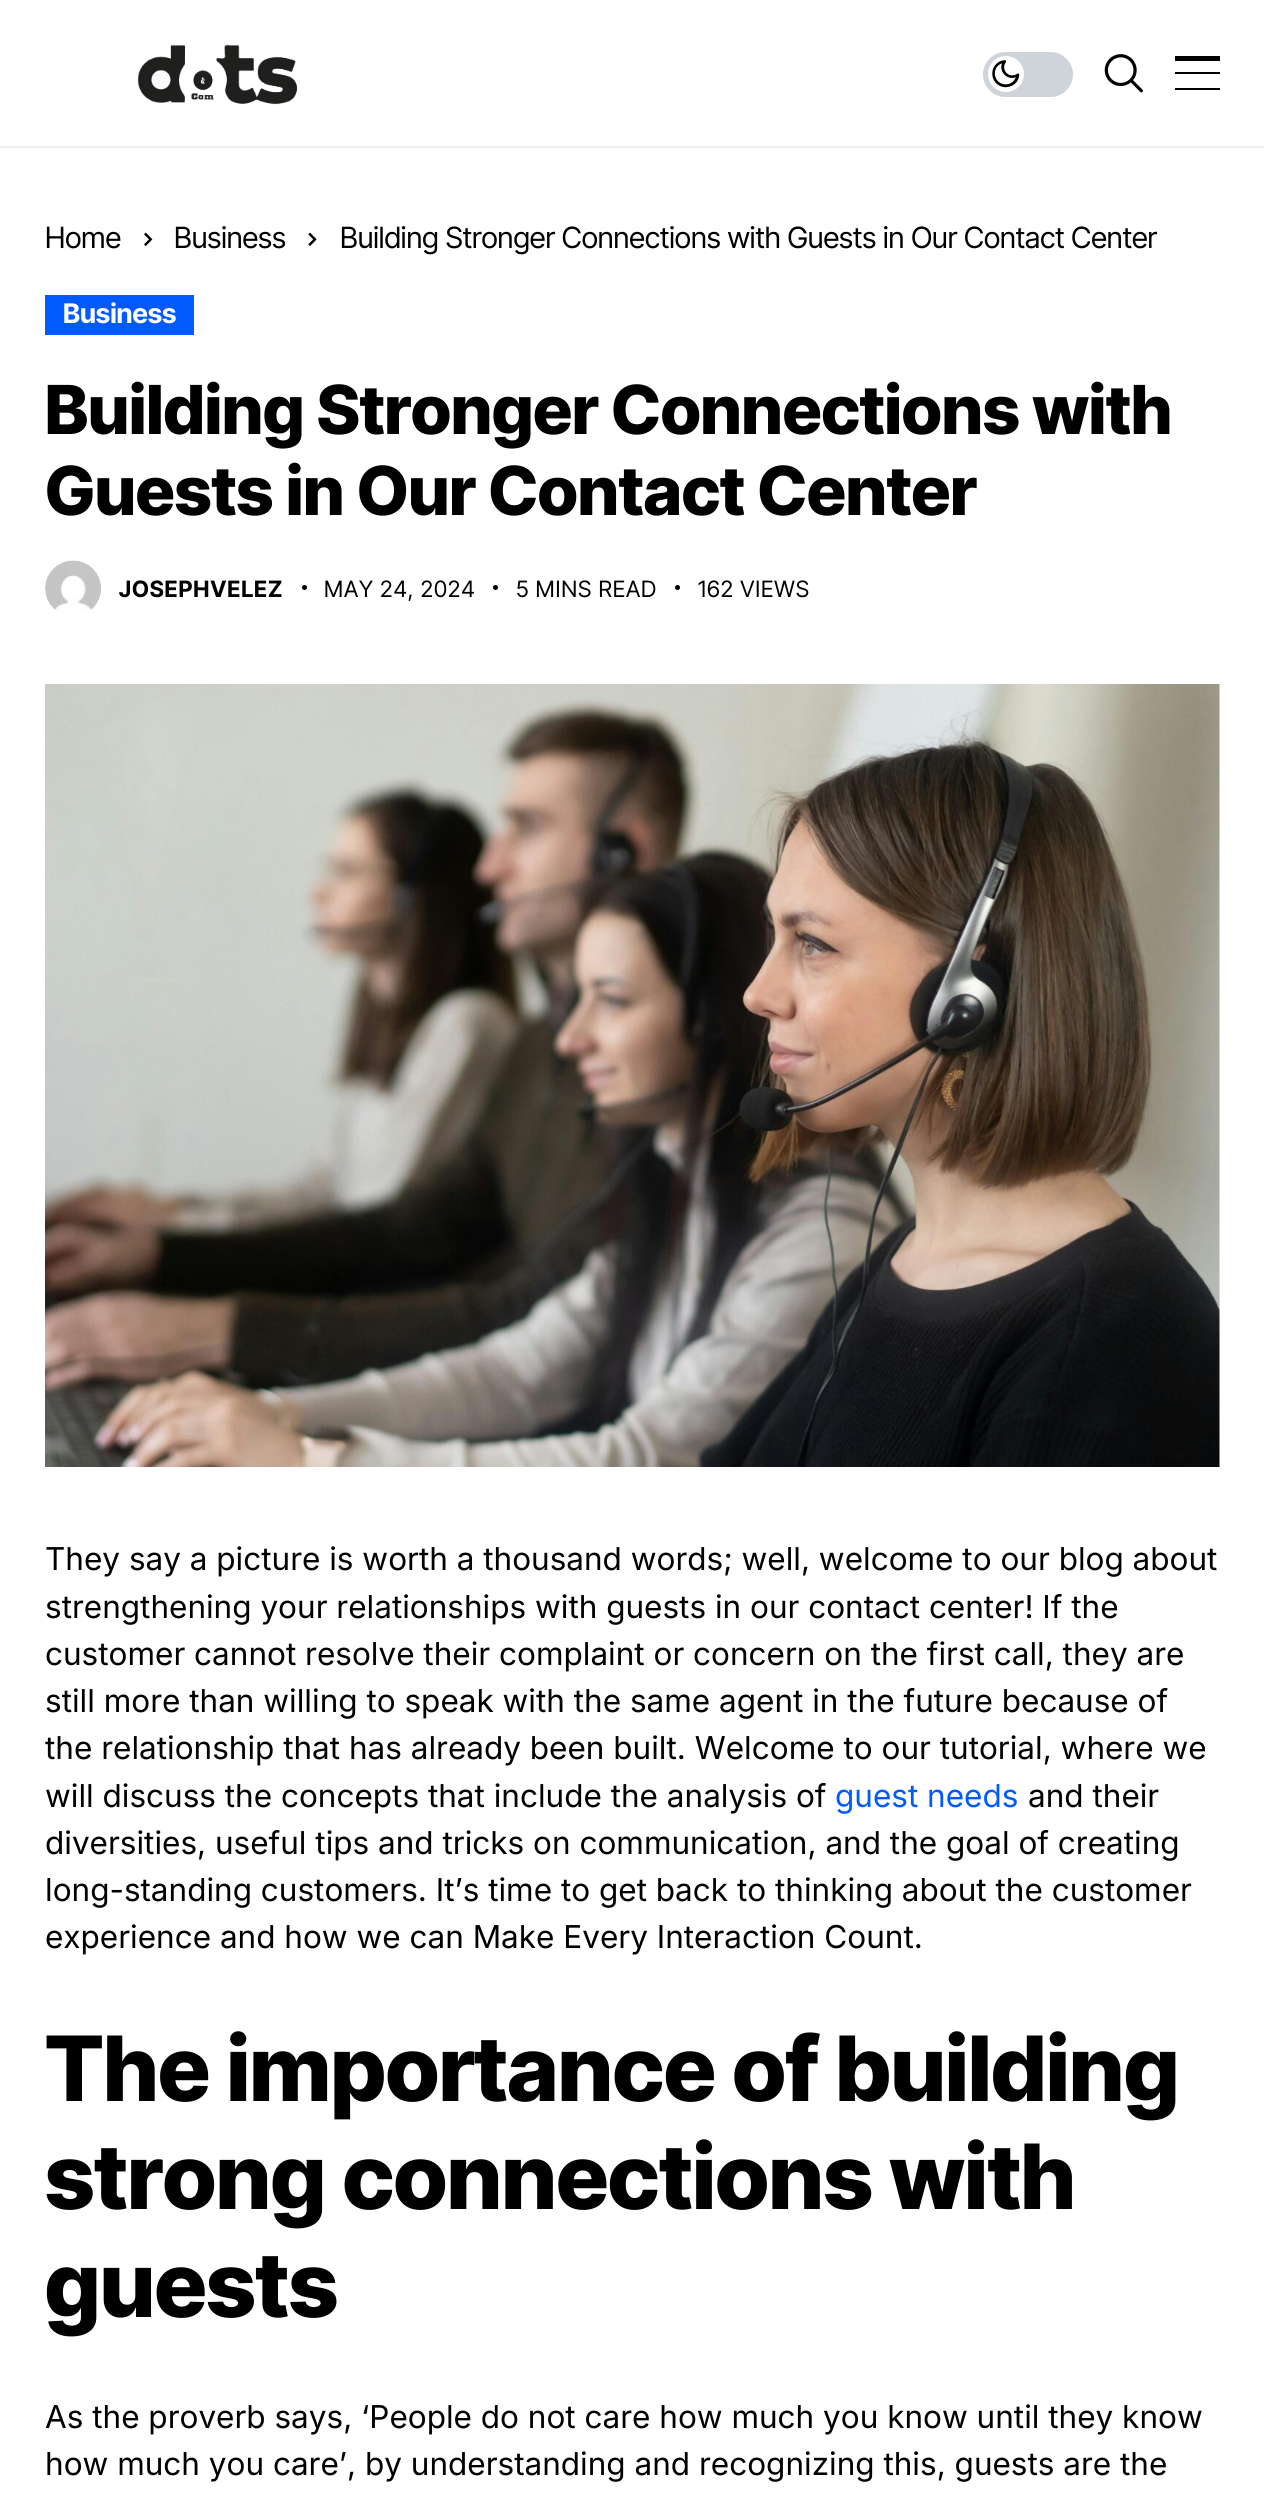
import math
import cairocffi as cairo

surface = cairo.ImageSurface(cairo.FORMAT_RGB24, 1264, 2513)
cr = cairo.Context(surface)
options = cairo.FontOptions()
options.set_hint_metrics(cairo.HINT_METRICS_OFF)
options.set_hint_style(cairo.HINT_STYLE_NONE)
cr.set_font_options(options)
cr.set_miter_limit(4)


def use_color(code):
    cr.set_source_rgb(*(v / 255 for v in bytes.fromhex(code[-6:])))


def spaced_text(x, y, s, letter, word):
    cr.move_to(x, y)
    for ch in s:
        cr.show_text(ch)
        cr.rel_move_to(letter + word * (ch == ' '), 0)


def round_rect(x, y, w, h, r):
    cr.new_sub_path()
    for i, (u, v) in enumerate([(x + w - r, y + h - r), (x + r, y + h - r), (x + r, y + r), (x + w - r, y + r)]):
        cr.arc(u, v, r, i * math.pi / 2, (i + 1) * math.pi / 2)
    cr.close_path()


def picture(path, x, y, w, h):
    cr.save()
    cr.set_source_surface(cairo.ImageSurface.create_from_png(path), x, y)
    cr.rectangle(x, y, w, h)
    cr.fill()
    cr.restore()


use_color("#ffffff")
cr.paint()
use_color("#eeeeee")
cr.rectangle(0, 146, 1264, 2)
cr.fill()
picture("img1.png", 137, 44, 161, 61)
use_color("#ced4da")
round_rect(983, 52, 90, 45, 22.5)
cr.fill()
use_color("#ffffff")
cr.arc(1006, 74, 18, 0, 2 * math.pi)
cr.fill()
picture("img2.png", 992, 60, 28, 28)
picture("img3.png", 1104, 54, 39, 39)
use_color("#000000")
cr.rectangle(1175, 56, 45, 5)
cr.fill()
cr.rectangle(1175, 72, 45, 2)
cr.fill()
cr.rectangle(1175, 88, 45, 2)
cr.fill()
cr.select_font_face("Inter Tight")
cr.set_font_size(29.25)
cr.move_to(45, 248)
cr.show_text("Home")
picture("img4.png", 144, 232, 9, 14)
cr.move_to(174, 248)
cr.show_text("Business")
picture("img5.png", 308, 232, 9, 14)
cr.move_to(340, 248)
cr.show_text("Building Stronger Connections with Guests in Our Contact Center")
use_color("#005aff")
cr.rectangle(45, 295, 149, 40)
cr.fill()
cr.select_font_face("Inter Tight", cairo.FONT_SLANT_NORMAL, cairo.FONT_WEIGHT_BOLD)
cr.set_font_size(27)
use_color("#ffffff")
cr.move_to(63, 323)
cr.show_text("Business")
cr.select_font_face("Inter Tight ExtraBold")
cr.set_font_size(67.5)
use_color("#000000")
cr.move_to(45, 434)
cr.show_text("Building Stronger Connections with")
cr.move_to(45, 515)
cr.show_text("Guests in Our Contact Center")
picture("img6.png", 45, 560, 56, 53)
cr.select_font_face("Inter Tight", cairo.FONT_SLANT_NORMAL, cairo.FONT_WEIGHT_BOLD)
cr.set_font_size(22.5)
spaced_text(119, 597, "JOSEPHVELEZ", 0.9, 0)
cr.new_path()
cr.arc(304.5, 587.5, 2.5, 0, 2 * math.pi)
cr.fill()
cr.select_font_face("Inter Tight")
spaced_text(324, 597, "MAY 24, 2024", 0.9, 0)
cr.new_path()
cr.arc(495.5, 587.5, 2.5, 0, 2 * math.pi)
cr.fill()
spaced_text(516, 597, "5 MINS READ", 0.9, 0)
cr.new_path()
cr.arc(677.5, 587.5, 2.5, 0, 2 * math.pi)
cr.fill()
spaced_text(698, 597, "162 VIEWS", 0.9, 0)
picture("img7.png", 45, 684, 1175, 783)
cr.select_font_face("Inter")
cr.set_font_size(31.5)
cr.move_to(45, 1570)
cr.show_text("They say a picture is worth a thousand words; well, welcome to our blog about")
cr.move_to(45, 1618)
cr.show_text("strengthening your relationships with guests in our contact center! If the")
cr.move_to(45, 1665)
cr.show_text("customer cannot resolve their complaint or concern on the first call, they are")
cr.move_to(45, 1712)
cr.show_text("still more than willing to speak with the same agent in the future because of")
cr.move_to(45, 1759)
cr.show_text("the relationship that has already been built. Welcome to our tutorial, where we")
cr.move_to(45, 1807)
cr.show_text("will discuss the concepts that include the analysis of")
use_color("#005aff")
cr.move_to(835, 1807)
cr.show_text("guest needs")
use_color("#000000")
cr.move_to(1028, 1807)
cr.show_text("and their")
cr.move_to(45, 1854)
cr.show_text("diversities, useful tips and tricks on communication, and the goal of creating")
cr.move_to(45, 1901)
cr.show_text("long-standing customers. It’s time to get back to thinking about the customer")
cr.move_to(45, 1948)
cr.show_text("experience and how we can Make Every Interaction Count.")
cr.select_font_face("Inter Tight ExtraBold")
cr.set_font_size(90)
cr.move_to(45, 2101)
cr.show_text("The importance of building")
cr.move_to(45, 2209)
cr.show_text("strong connections with")
cr.move_to(45, 2317)
cr.show_text("guests")
cr.select_font_face("Inter")
cr.set_font_size(31.5)
cr.move_to(45, 2428)
cr.show_text("As the proverb says, ‘People do not care how much you know until they know")
cr.move_to(45, 2475)
cr.show_text("how much you care’, by understanding and recognizing this, guests are the")
surface.write_to_png("result.png")
